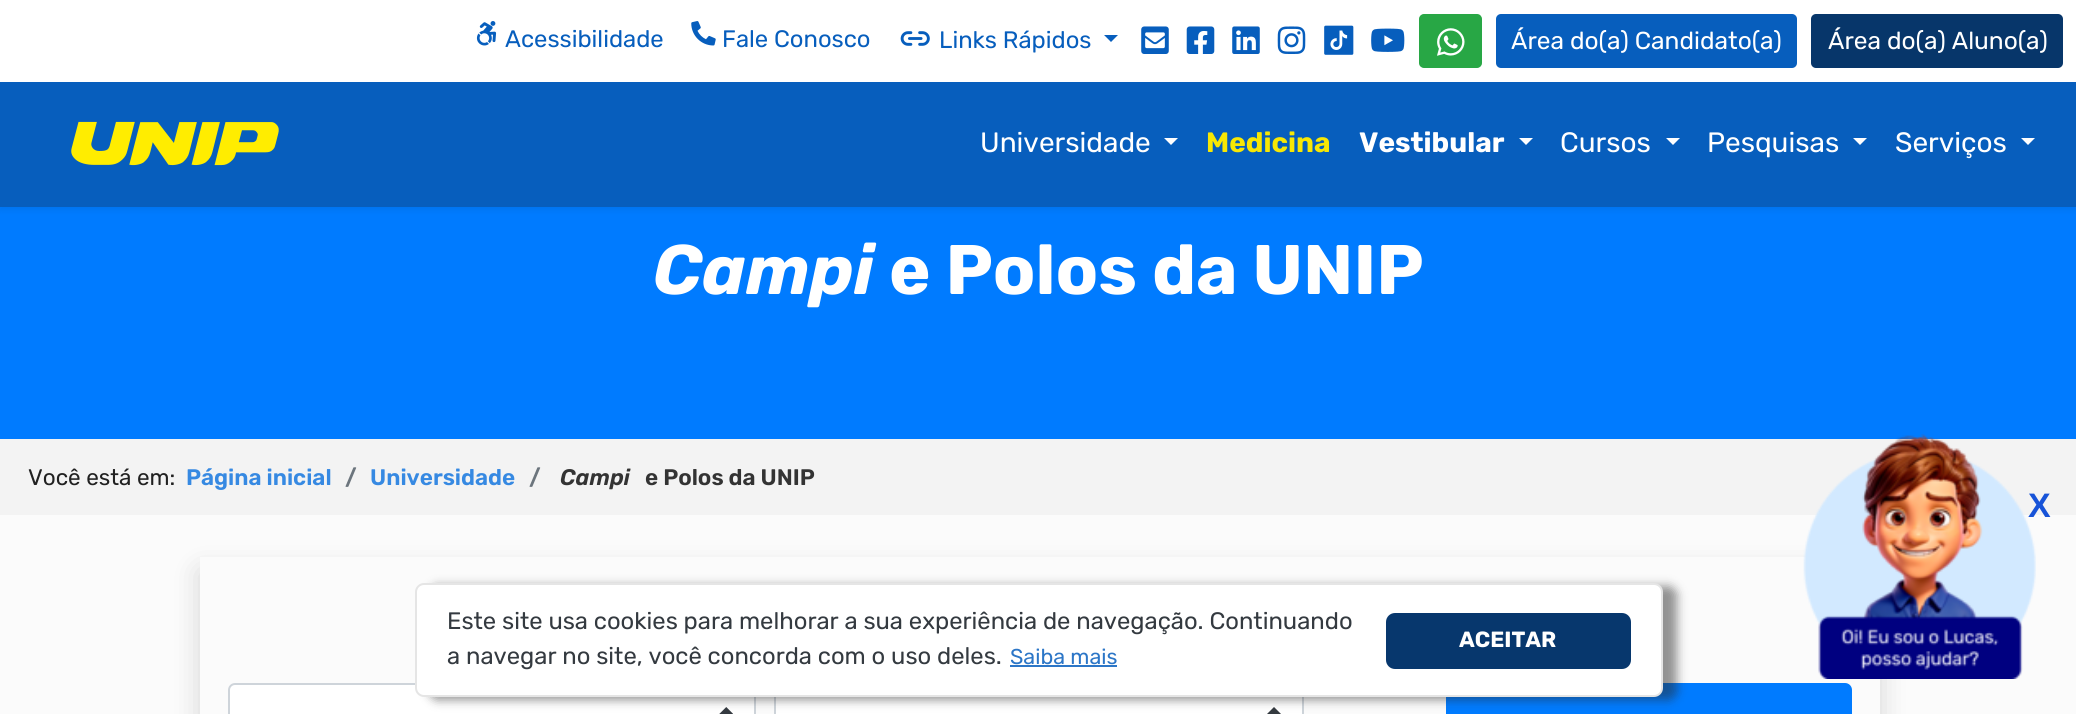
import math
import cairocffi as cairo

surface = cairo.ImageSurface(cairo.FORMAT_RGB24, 2076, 714)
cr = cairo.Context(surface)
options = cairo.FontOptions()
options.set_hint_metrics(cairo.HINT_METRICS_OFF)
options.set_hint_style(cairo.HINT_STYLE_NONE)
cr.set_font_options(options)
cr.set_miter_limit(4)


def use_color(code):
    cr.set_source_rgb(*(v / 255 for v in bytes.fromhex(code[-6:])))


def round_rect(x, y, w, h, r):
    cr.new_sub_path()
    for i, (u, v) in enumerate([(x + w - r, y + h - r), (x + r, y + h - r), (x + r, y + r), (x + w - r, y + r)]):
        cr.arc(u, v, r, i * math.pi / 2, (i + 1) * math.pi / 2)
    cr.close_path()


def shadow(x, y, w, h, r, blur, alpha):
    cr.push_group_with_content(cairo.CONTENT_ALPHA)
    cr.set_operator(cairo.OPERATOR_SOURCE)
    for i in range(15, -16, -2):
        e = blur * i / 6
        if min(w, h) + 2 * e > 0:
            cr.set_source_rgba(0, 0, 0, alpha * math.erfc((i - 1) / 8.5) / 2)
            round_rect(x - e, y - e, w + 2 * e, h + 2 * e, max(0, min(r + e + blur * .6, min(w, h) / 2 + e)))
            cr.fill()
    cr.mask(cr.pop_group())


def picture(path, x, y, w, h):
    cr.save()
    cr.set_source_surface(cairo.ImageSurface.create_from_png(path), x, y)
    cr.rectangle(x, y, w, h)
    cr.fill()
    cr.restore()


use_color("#fbfbfb")
cr.paint()
use_color("#007bff")
cr.rectangle(0, 207, 2076, 232)
cr.fill()
use_color("#000000")
shadow(0, 84, 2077, 126, 0, 3.5, 0.07)
use_color("#ffffff")
cr.rectangle(0, 0, 2076, 82)
cr.fill()
picture("img1.png", 476, 21, 21, 25)
cr.select_font_face("Rubik")
cr.set_font_size(23.8)
use_color("#075ebd")
cr.move_to(505, 47)
cr.show_text("Acessibilidade")
picture("img2.png", 691, 21, 25, 25)
cr.move_to(722, 47)
cr.show_text("Fale Conosco")
picture("img3.png", 900, 31, 30, 15)
cr.move_to(939, 48)
cr.show_text("Links Rápidos")
cr.new_path()
cr.move_to(1104, 35)
cr.line_to(1118, 35)
cr.line_to(1111, 42)
cr.close_path()
cr.fill()
picture("img4.png", 1141, 26, 28, 28)
picture("img5.png", 1186, 26, 29, 28)
picture("img6.png", 1232, 26, 28, 28)
picture("img7.png", 1277, 26, 29, 28)
picture("img8.png", 1324, 25, 30, 30)
picture("img9.png", 1371, 28, 34, 24)
use_color("#28a745")
round_rect(1420, 15, 61, 52, 4)
cr.fill_preserve()
cr.stroke()
picture("img10.png", 1437, 28, 28, 28)
use_color("#075ebd")
round_rect(1496, 14, 301, 54, 5)
cr.fill()
cr.set_font_size(24.5)
use_color("#ffffff")
cr.move_to(1511, 49)
cr.show_text("Área do(a) Candidato(a)")
use_color("#07366a")
round_rect(1811, 14, 252, 54, 5)
cr.fill()
use_color("#ffffff")
cr.move_to(1828, 49)
cr.show_text("Área do(a) Aluno(a)")
use_color("#075ebd")
cr.rectangle(0, 82, 2076, 125)
cr.fill()
picture("img11.png", 71, 121, 208, 45)
cr.set_font_size(28)
use_color("#ffffff")
cr.move_to(980, 152)
cr.show_text("Universidade")
cr.new_path()
cr.move_to(1164, 138)
cr.line_to(1178, 138)
cr.line_to(1171, 145)
cr.close_path()
cr.fill()
cr.select_font_face("Rubik", cairo.FONT_SLANT_NORMAL, cairo.FONT_WEIGHT_BOLD)
use_color("#f7e704")
cr.move_to(1206, 152)
cr.show_text("Medicina")
use_color("#ffffff")
cr.move_to(1359, 152)
cr.show_text("Vestibular")
cr.new_path()
cr.move_to(1519, 138)
cr.line_to(1533, 138)
cr.line_to(1526, 145)
cr.close_path()
cr.fill()
cr.select_font_face("Rubik")
cr.move_to(1560, 152)
cr.show_text("Cursos")
cr.new_path()
cr.move_to(1666, 138)
cr.line_to(1680, 138)
cr.line_to(1673, 145)
cr.close_path()
cr.fill()
cr.move_to(1707, 152)
cr.show_text("Pesquisas")
cr.new_path()
cr.move_to(1853, 138)
cr.line_to(1867, 138)
cr.line_to(1860, 145)
cr.close_path()
cr.fill()
cr.move_to(1895, 152)
cr.show_text("Serviços")
cr.new_path()
cr.move_to(2021, 138)
cr.line_to(2035, 138)
cr.line_to(2028, 145)
cr.close_path()
cr.fill()
cr.select_font_face("Rubik", cairo.FONT_SLANT_ITALIC, cairo.FONT_WEIGHT_BOLD)
cr.set_font_size(70)
cr.move_to(653, 294)
cr.show_text("Campi")
cr.select_font_face("Rubik", cairo.FONT_SLANT_NORMAL, cairo.FONT_WEIGHT_BOLD)
cr.move_to(889, 294)
cr.show_text("e Polos da UNIP")
use_color("#f3f3f3")
cr.rectangle(0, 439, 2076, 76)
cr.fill()
cr.select_font_face("Rubik")
cr.set_font_size(22.5)
use_color("#212121")
cr.move_to(28, 485)
cr.show_text("Você está em:")
cr.select_font_face("Rubik SemiBold")
use_color("#3689e2")
cr.move_to(186, 485)
cr.show_text("Página inicial")
use_color("#6c757d")
cr.move_to(345, 485)
cr.show_text("/")
use_color("#3689e2")
cr.move_to(370, 485)
cr.show_text("Universidade")
use_color("#6c757d")
cr.move_to(529, 485)
cr.show_text("/")
cr.select_font_face("Rubik SemiBold", cairo.FONT_SLANT_ITALIC)
use_color("#333333")
cr.move_to(560, 485)
cr.show_text("Campi")
cr.select_font_face("Rubik SemiBold")
cr.move_to(645, 485)
cr.show_text("e Polos da UNIP")
cr.save()
cr.set_fill_rule(cairo.FILL_RULE_EVEN_ODD)
cr.new_path()
cr.move_to(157, 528)
cr.line_to(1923, 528)
cr.line_to(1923, 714)
cr.line_to(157, 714)
cr.close_path()
cr.move_to(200, 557)
cr.line_to(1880, 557)
cr.line_to(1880, 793)
cr.line_to(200, 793)
cr.close_path()
cr.clip()
use_color("#000000")
shadow(200, 571, 1680, 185, 0, 14, 0.15)
cr.restore()
use_color("#ffffff")
round_rect(228, 683, 528, 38, 7)
cr.fill()
picture("img12.png", 719, 707, 14, 7)
round_rect(229, 684, 526, 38, 6)
use_color("#ced4da")
cr.stroke()
use_color("#ffffff")
cr.rectangle(776, 697, 526, 17)
cr.fill()
picture("img13.png", 1267, 707, 14, 7)
cr.rectangle(775, 684, 528, 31)
use_color("#ced4da")
cr.stroke()
use_color("#007bff")
round_rect(1447, 684, 404, 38, 6)
cr.fill_preserve()
cr.stroke()
cr.select_font_face("Liberation Sans", cairo.FONT_SLANT_NORMAL, cairo.FONT_WEIGHT_BOLD)
cr.set_font_size(34)
use_color("#1753d8")
cr.move_to(2028, 517)
cr.show_text("X")
picture("img14.png", 1803, 434, 233, 245)
use_color("#282828")
shadow(429, 586, 1248, 114, 9, 5, 0.5)
use_color("#ffffff")
round_rect(416, 584, 1246, 112, 8)
cr.fill_preserve()
use_color("#e5e5e5")
cr.stroke()
cr.select_font_face("Rubik")
cr.set_font_size(23.8)
use_color("#343a40")
cr.move_to(447, 629)
cr.show_text("Este site usa cookies para melhorar a sua experiência de navegação. Continuando")
cr.move_to(447, 664)
cr.show_text("a navegar no site, você concorda com o uso deles.")
cr.set_font_size(21.5)
use_color("#2c76c7")
cr.move_to(1010, 664)
cr.show_text("Saiba mais")
cr.rectangle(1010, 665, 107, 2)
cr.fill()
use_color("#07376d")
round_rect(1386, 613, 245, 56, 9)
cr.fill()
cr.select_font_face("Rubik", cairo.FONT_SLANT_NORMAL, cairo.FONT_WEIGHT_BOLD)
cr.set_font_size(22)
use_color("#ffffff")
cr.move_to(1459, 647)
cr.show_text("ACEITAR")
surface.write_to_png("result.png")
